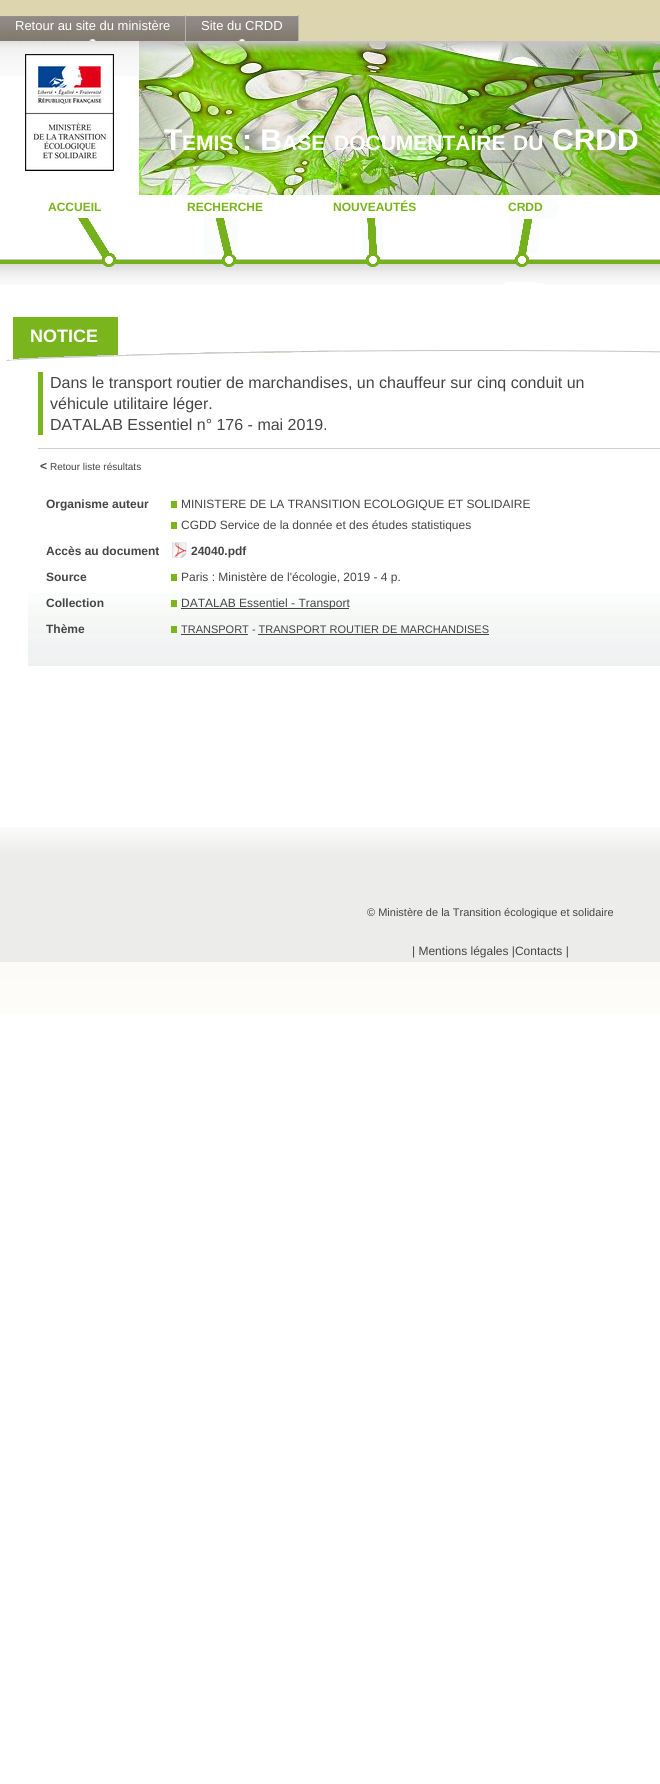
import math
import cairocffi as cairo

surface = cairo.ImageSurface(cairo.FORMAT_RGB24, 660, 1784)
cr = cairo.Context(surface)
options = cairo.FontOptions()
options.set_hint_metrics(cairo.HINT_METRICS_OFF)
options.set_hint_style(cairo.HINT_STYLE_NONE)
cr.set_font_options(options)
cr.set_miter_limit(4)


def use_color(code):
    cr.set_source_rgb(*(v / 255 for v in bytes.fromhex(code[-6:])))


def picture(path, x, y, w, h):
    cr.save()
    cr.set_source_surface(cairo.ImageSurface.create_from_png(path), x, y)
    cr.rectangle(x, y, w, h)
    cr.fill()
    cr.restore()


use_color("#ffffff")
cr.paint()
picture("img1.png", 0, 0, 660, 1014)
picture("img2.png", 0, 16, 185, 25)
use_color("#b5b1ac")
cr.rectangle(185, 15, 1, 26)
cr.fill()
cr.select_font_face("Liberation Sans")
cr.set_font_size(13)
use_color("#ffffff")
cr.move_to(15, 30)
cr.show_text("Retour au site du ministère")
picture("img3.png", 186, 16, 112, 25)
use_color("#b5b1ac")
cr.rectangle(298, 15, 1, 26)
cr.fill()
use_color("#ffffff")
cr.move_to(201, 30)
cr.show_text("Site du CRDD")
cr.rectangle(0, 76, 660, 751)
cr.fill()
picture("img4.png", 0, 41, 139, 35)
picture("img5.png", 25, 54, 89, 117)
picture("img6.png", 139, 41, 521, 154)
cr.select_font_face("Liberation Sans", cairo.FONT_SLANT_NORMAL, cairo.FONT_WEIGHT_BOLD)
cr.set_font_size(30)
cr.move_to(164, 150)
cr.show_text("T")
cr.set_font_size(21)
cr.move_to(182, 150)
cr.show_text("EMIS")
cr.set_font_size(30)
cr.move_to(242, 150)
cr.show_text(": B")
cr.set_font_size(21)
cr.move_to(282, 150)
cr.show_text("ASE")
cr.move_to(334, 150)
cr.show_text("DOCUMENTAIRE")
cr.move_to(513, 150)
cr.show_text("DU")
cr.set_font_size(30)
cr.move_to(552, 150)
cr.show_text("CRDD")
picture("img7.png", 0, 259, 660, 26)
picture("img8.png", 0, 197, 150, 70)
cr.set_font_size(12)
use_color("#79b41a")
cr.move_to(48, 211)
cr.show_text("ACCUEIL")
picture("img9.png", 150, 197, 150, 70)
use_color("#ffffff")
cr.rectangle(205, 200, 31, 14)
cr.fill()
use_color("#79b41a")
cr.move_to(187, 211)
cr.show_text("RECHERCHE")
picture("img10.png", 300, 197, 150, 70)
use_color("#ffffff")
cr.rectangle(354, 200, 38, 14)
cr.fill()
use_color("#79b41a")
cr.move_to(333, 211)
cr.show_text("NOUVEAUTÉS")
picture("img11.png", 450, 197, 150, 88)
use_color("#ffffff")
cr.rectangle(510, 200, 32, 14)
cr.fill()
use_color("#79b41a")
cr.move_to(508, 211)
cr.show_text("CRDD")
picture("img12.png", 6, 350, 654, 11)
use_color("#7ab51e")
cr.rectangle(13, 317, 105, 42)
cr.fill()
picture("img13.png", 10, 317, 108, 44)
cr.set_font_size(18)
use_color("#ffffff")
cr.move_to(30, 342)
cr.show_text("NOTICE")
picture("img14.png", 28, 593, 632, 73)
use_color("#7ab51e")
cr.rectangle(38, 372, 5, 63)
cr.fill()
cr.select_font_face("Liberation Sans")
cr.set_font_size(16)
use_color("#454545")
cr.move_to(50, 388)
cr.show_text("Dans le transport routier de marchandises, un chauffeur sur cinq conduit un")
cr.move_to(50, 409)
cr.show_text("véhicule utilitaire léger.")
cr.move_to(50, 430)
cr.show_text("DATALAB Essentiel n° 176 - mai 2019.")
use_color("#cccccc")
cr.rectangle(38, 448, 622, 1)
cr.fill()
cr.select_font_face("Liberation Sans", cairo.FONT_SLANT_NORMAL, cairo.FONT_WEIGHT_BOLD)
cr.set_font_size(12)
use_color("#454545")
cr.move_to(40, 470)
cr.show_text("<")
cr.select_font_face("Liberation Sans")
cr.set_font_size(10)
cr.move_to(50, 470)
cr.show_text("Retour liste résultats")
cr.select_font_face("Liberation Sans", cairo.FONT_SLANT_NORMAL, cairo.FONT_WEIGHT_BOLD)
cr.set_font_size(12)
cr.move_to(46, 508)
cr.show_text("Organisme auteur")
use_color("#79b51c")
cr.rectangle(171, 501, 6, 7)
cr.fill()
cr.select_font_face("Liberation Sans")
use_color("#454545")
cr.move_to(181, 508)
cr.show_text("MINISTERE DE LA TRANSITION ECOLOGIQUE ET SOLIDAIRE")
use_color("#79b51c")
cr.rectangle(171, 522, 6, 7)
cr.fill()
use_color("#454545")
cr.move_to(181, 529)
cr.show_text("CGDD Service de la donnée et des études statistiques")
cr.select_font_face("Liberation Sans", cairo.FONT_SLANT_NORMAL, cairo.FONT_WEIGHT_BOLD)
cr.move_to(46, 555)
cr.show_text("Accès au document")
picture("img15.png", 172, 542, 15, 16)
cr.move_to(191, 555)
cr.show_text("24040.pdf")
cr.move_to(46, 581)
cr.show_text("Source")
use_color("#79b51c")
cr.rectangle(171, 574, 6, 7)
cr.fill()
cr.select_font_face("Liberation Sans")
use_color("#454545")
cr.move_to(181, 581)
cr.show_text("Paris : Ministère de l'écologie, 2019 - 4 p.")
cr.select_font_face("Liberation Sans", cairo.FONT_SLANT_NORMAL, cairo.FONT_WEIGHT_BOLD)
cr.move_to(46, 607)
cr.show_text("Collection")
use_color("#79b51c")
cr.rectangle(171, 600, 6, 7)
cr.fill()
use_color("#454545")
cr.rectangle(181, 608, 168, 1)
cr.fill()
cr.select_font_face("Liberation Sans")
cr.move_to(181, 607)
cr.show_text("DATALAB Essentiel - Transport")
cr.select_font_face("Liberation Sans", cairo.FONT_SLANT_NORMAL, cairo.FONT_WEIGHT_BOLD)
cr.move_to(46, 633)
cr.show_text("Thème")
use_color("#79b51c")
cr.rectangle(171, 626, 6, 7)
cr.fill()
cr.select_font_face("Liberation Sans")
cr.set_font_size(11)
use_color("#454545")
cr.move_to(181, 633)
cr.show_text("TRANSPORT - TRANSPORT ROUTIER DE MARCHANDISES")
cr.rectangle(181, 634, 67, 1)
cr.fill()
cr.rectangle(258, 634, 231, 1)
cr.fill()
picture("img16.png", 0, 827, 660, 57)
use_color("#ececeb")
cr.rectangle(0, 884, 660, 78)
cr.fill()
use_color("#454545")
cr.move_to(367, 916)
cr.show_text("© Ministère de la Transition écologique et solidaire")
cr.set_font_size(12)
cr.move_to(412, 955)
cr.show_text("| Mentions légales |Contacts |")
surface.write_to_png("result.png")
